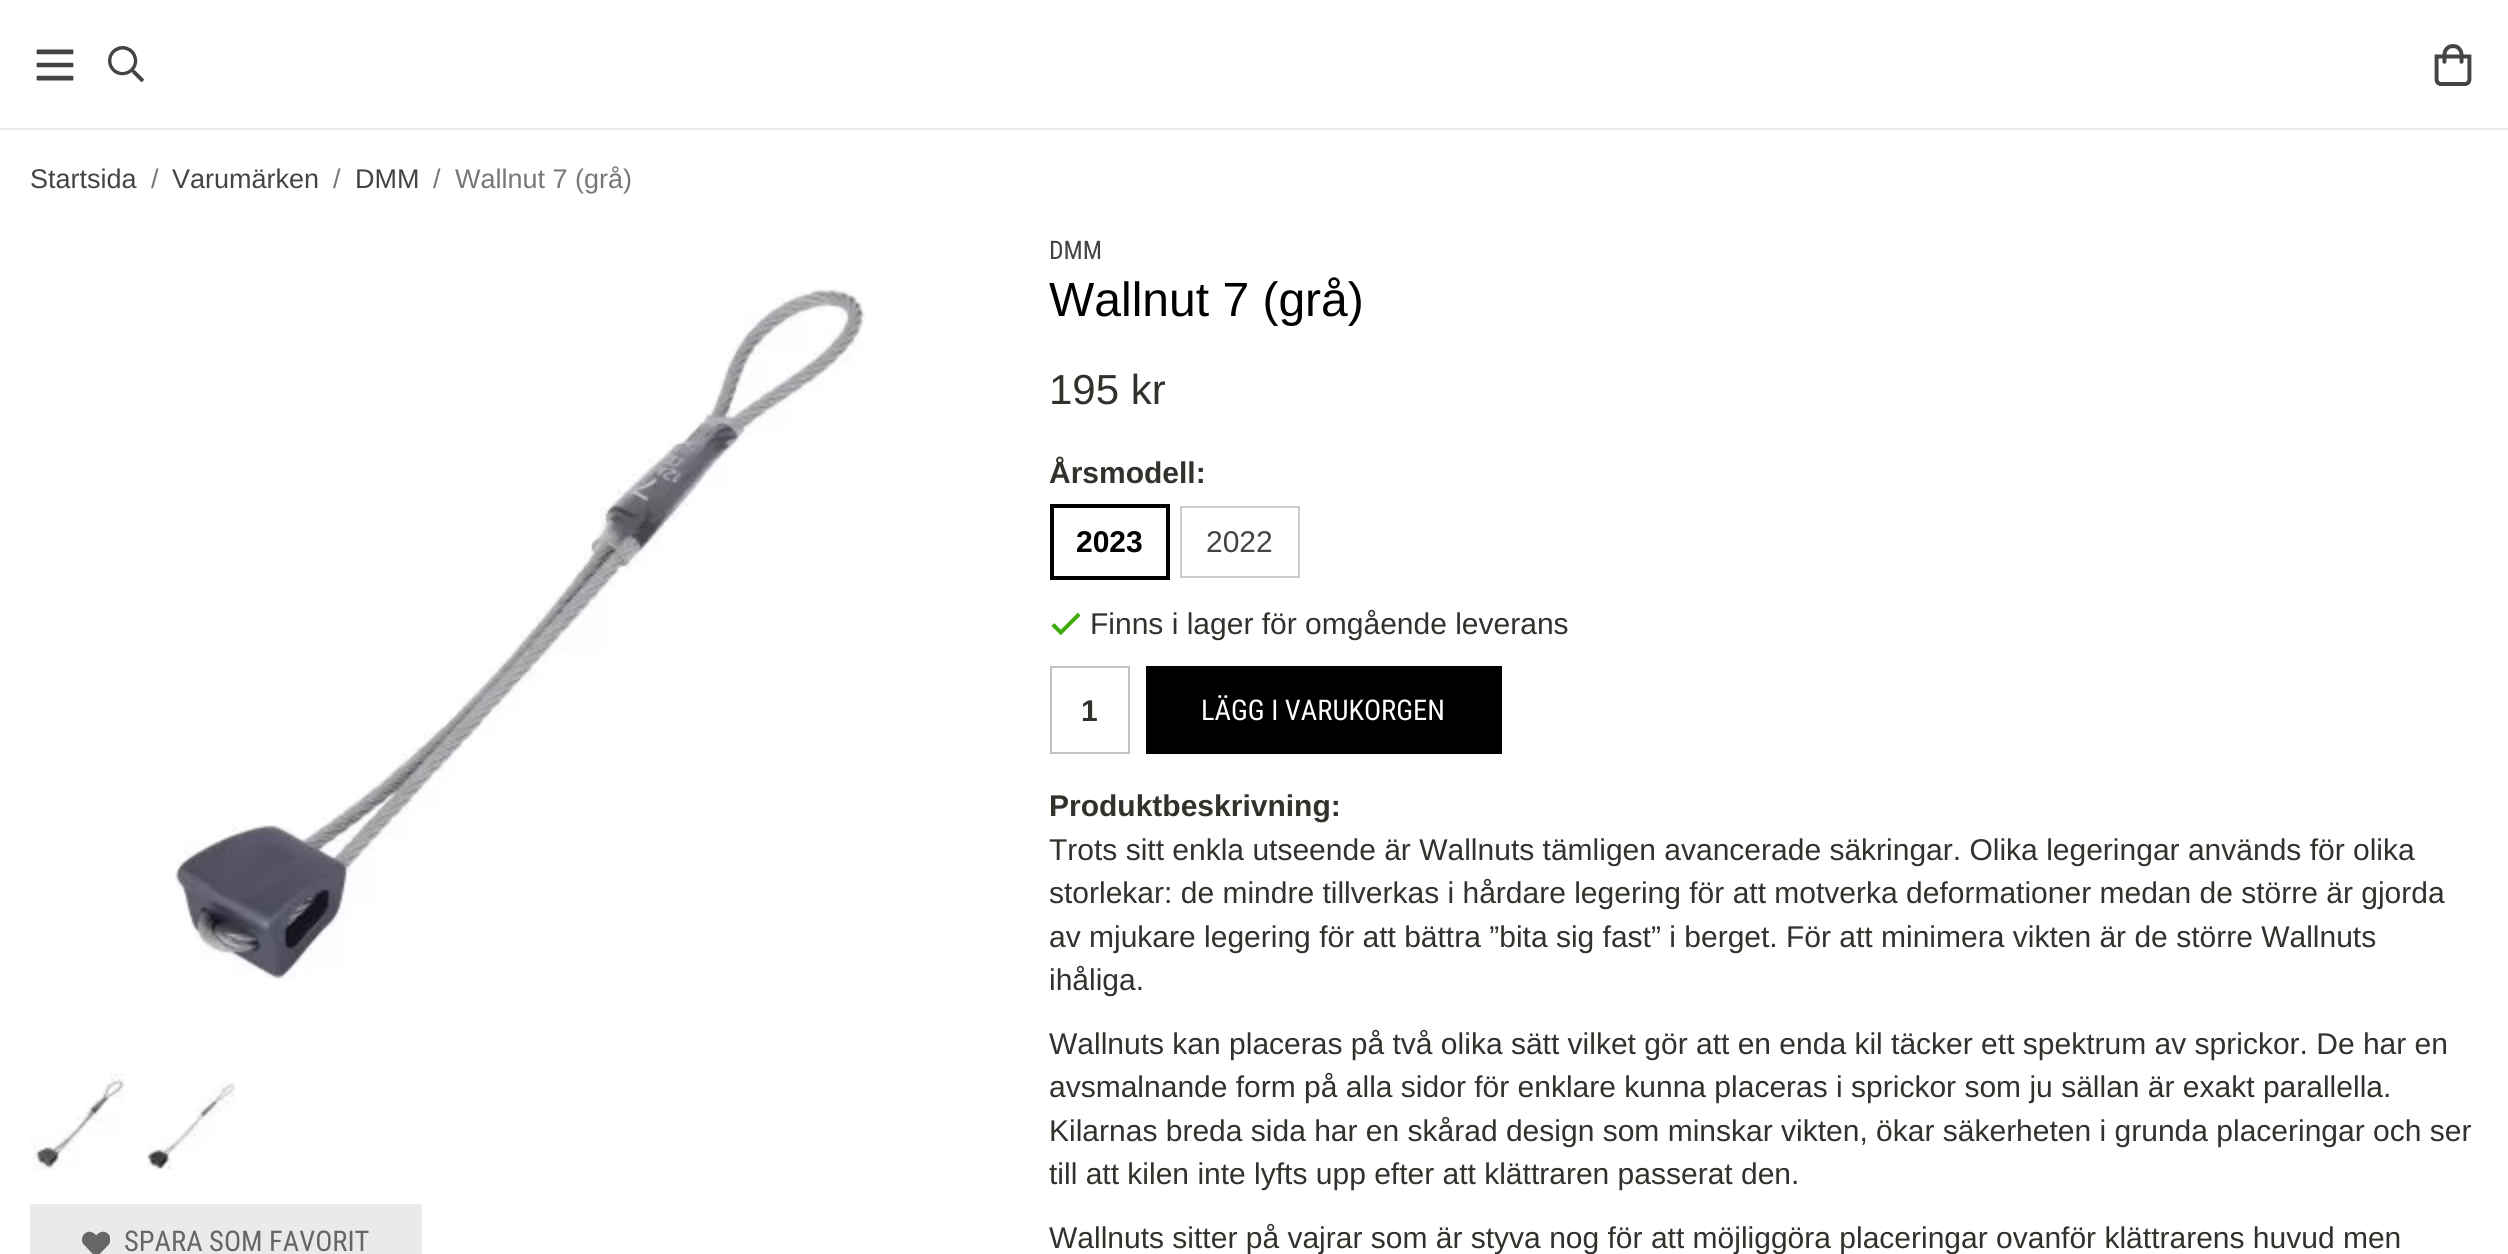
import math
import cairocffi as cairo

surface = cairo.ImageSurface(cairo.FORMAT_RGB24, 2508, 1254)
cr = cairo.Context(surface)
options = cairo.FontOptions()
options.set_hint_metrics(cairo.HINT_METRICS_OFF)
options.set_hint_style(cairo.HINT_STYLE_NONE)
cr.set_font_options(options)
cr.set_miter_limit(4)


def use_color(code):
    cr.set_source_rgb(*(v / 255 for v in bytes.fromhex(code[-6:])))


def picture(path, x, y, w, h):
    cr.save()
    cr.set_source_surface(cairo.ImageSurface.create_from_png(path), x, y)
    cr.rectangle(x, y, w, h)
    cr.fill()
    cr.restore()


use_color("#ffffff")
cr.paint()
use_color("#e9e9e9")
cr.rectangle(0, 128, 2508, 2)
cr.fill()
picture("img1.png", 36, 49, 38, 32)
picture("img2.png", 108, 46, 36, 36)
picture("img3.png", 2434, 44, 38, 42)
cr.select_font_face("Liberation Sans")
cr.set_font_size(27)
use_color("#444444")
cr.move_to(30, 188)
cr.show_text("Startsida")
use_color("#777777")
cr.move_to(151, 188)
cr.show_text("/")
use_color("#444444")
cr.move_to(172, 188)
cr.show_text("Varumärken")
use_color("#777777")
cr.move_to(333, 188)
cr.show_text("/")
use_color("#444444")
cr.move_to(355, 188)
cr.show_text("DMM")
use_color("#777777")
cr.move_to(433, 188)
cr.show_text("/")
cr.move_to(455, 188)
cr.show_text("Wallnut 7 (grå)")
picture("img4.png", 175, 289, 690, 690)
picture("img5.png", 30, 1074, 95, 96)
picture("img6.png", 147, 1082, 89, 88)
cr.select_font_face("Roboto Condensed")
cr.set_font_size(25.5)
use_color("#444444")
cr.move_to(1049, 259)
cr.show_text("DMM")
cr.select_font_face("Liberation Sans")
cr.set_font_size(48)
use_color("#000000")
cr.move_to(1049, 316)
cr.show_text("Wallnut 7 (grå)")
cr.set_font_size(42)
use_color("#33312c")
cr.move_to(1049, 404)
cr.show_text("195 kr")
cr.select_font_face("Liberation Sans", cairo.FONT_SLANT_NORMAL, cairo.FONT_WEIGHT_BOLD)
cr.set_font_size(30)
cr.move_to(1049, 483)
cr.show_text("Årsmodell:")
cr.rectangle(1052, 506, 116, 72)
use_color("#000000")
cr.set_line_width(4)
cr.stroke()
cr.move_to(1076, 552)
cr.show_text("2023")
cr.rectangle(1181, 507, 118, 70)
use_color("#cccccc")
cr.set_line_width(2)
cr.stroke()
cr.select_font_face("Liberation Sans")
use_color("#444444")
cr.move_to(1206, 552)
cr.show_text("2022")
picture("img7.png", 1051, 613, 30, 22)
use_color("#33312c")
cr.move_to(1090, 634)
cr.show_text("Finns i lager för omgående leverans")
cr.rectangle(1051, 667, 78, 86)
use_color("#c2c2c2")
cr.stroke()
cr.select_font_face("Liberation Sans", cairo.FONT_SLANT_NORMAL, cairo.FONT_WEIGHT_BOLD)
use_color("#33312c")
cr.move_to(1081, 721)
cr.show_text("1")
use_color("#000000")
cr.rectangle(1146, 666, 356, 88)
cr.fill()
cr.select_font_face("Roboto Condensed")
cr.set_font_size(28.5)
use_color("#ffffff")
cr.move_to(1201, 720)
cr.show_text("LÄGG I VARUKORGEN")
cr.select_font_face("Liberation Sans", cairo.FONT_SLANT_NORMAL, cairo.FONT_WEIGHT_BOLD)
cr.set_font_size(30)
use_color("#33312c")
cr.move_to(1049, 816)
cr.show_text("Produktbeskrivning:")
cr.select_font_face("Liberation Sans")
cr.move_to(1049, 860)
cr.show_text("Trots sitt enkla utseende är Wallnuts tämligen avancerade säkringar. Olika legeringar används för olika")
cr.move_to(1049, 903)
cr.show_text("storlekar: de mindre tillverkas i hårdare legering för att motverka deformationer medan de större är gjorda")
cr.move_to(1049, 947)
cr.show_text("av mjukare legering för att bättra ”bita sig fast” i berget. För att minimera vikten är de större Wallnuts")
cr.move_to(1049, 990)
cr.show_text("ihåliga.")
cr.move_to(1049, 1054)
cr.show_text("Wallnuts kan placeras på två olika sätt vilket gör att en enda kil täcker ett spektrum av sprickor. De har en")
cr.move_to(1049, 1097)
cr.show_text("avsmalnande form på alla sidor för enklare kunna placeras i sprickor som ju sällan är exakt parallella.")
cr.move_to(1049, 1141)
cr.show_text("Kilarnas breda sida har en skårad design som minskar vikten, ökar säkerheten i grunda placeringar och ser")
cr.move_to(1049, 1184)
cr.show_text("till att kilen inte lyfts upp efter att klättraren passerat den.")
cr.move_to(1049, 1248)
cr.show_text("Wallnuts sitter på vajrar som är styva nog för att möjliggöra placeringar ovanför klättrarens huvud men")
use_color("#eaeaea")
cr.rectangle(30, 1204, 392, 50)
cr.fill()
picture("img8.png", 82, 1231, 28, 23)
cr.select_font_face("Roboto Condensed")
cr.set_font_size(28.5)
use_color("#666666")
cr.move_to(124, 1251)
cr.show_text("SPARA SOM FAVORIT")
surface.write_to_png("result.png")
